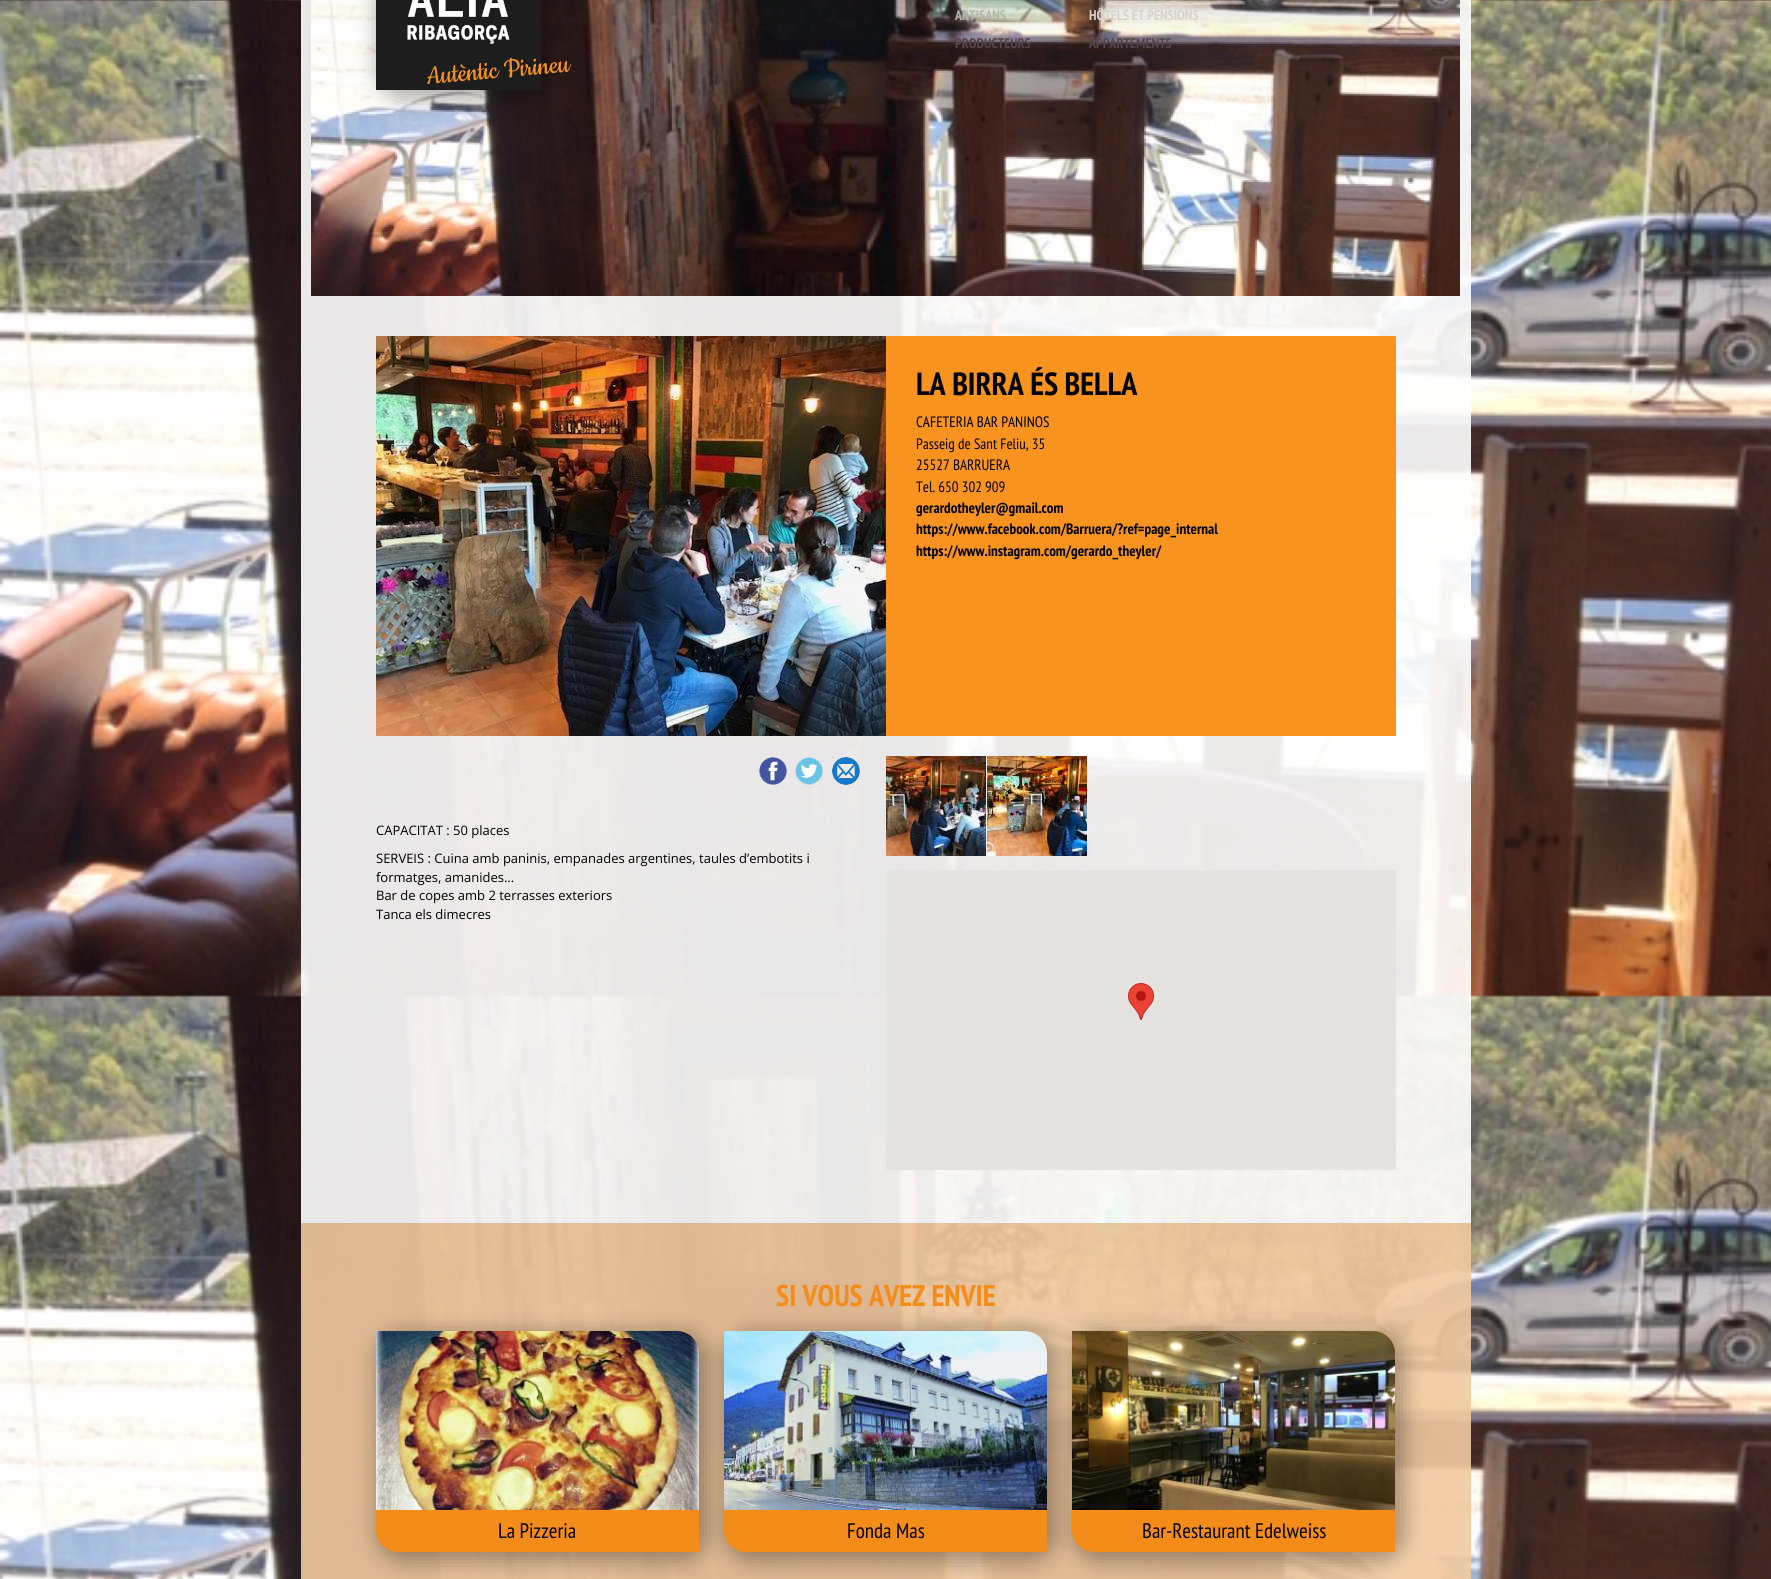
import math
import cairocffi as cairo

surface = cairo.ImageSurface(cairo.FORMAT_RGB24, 1771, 1579)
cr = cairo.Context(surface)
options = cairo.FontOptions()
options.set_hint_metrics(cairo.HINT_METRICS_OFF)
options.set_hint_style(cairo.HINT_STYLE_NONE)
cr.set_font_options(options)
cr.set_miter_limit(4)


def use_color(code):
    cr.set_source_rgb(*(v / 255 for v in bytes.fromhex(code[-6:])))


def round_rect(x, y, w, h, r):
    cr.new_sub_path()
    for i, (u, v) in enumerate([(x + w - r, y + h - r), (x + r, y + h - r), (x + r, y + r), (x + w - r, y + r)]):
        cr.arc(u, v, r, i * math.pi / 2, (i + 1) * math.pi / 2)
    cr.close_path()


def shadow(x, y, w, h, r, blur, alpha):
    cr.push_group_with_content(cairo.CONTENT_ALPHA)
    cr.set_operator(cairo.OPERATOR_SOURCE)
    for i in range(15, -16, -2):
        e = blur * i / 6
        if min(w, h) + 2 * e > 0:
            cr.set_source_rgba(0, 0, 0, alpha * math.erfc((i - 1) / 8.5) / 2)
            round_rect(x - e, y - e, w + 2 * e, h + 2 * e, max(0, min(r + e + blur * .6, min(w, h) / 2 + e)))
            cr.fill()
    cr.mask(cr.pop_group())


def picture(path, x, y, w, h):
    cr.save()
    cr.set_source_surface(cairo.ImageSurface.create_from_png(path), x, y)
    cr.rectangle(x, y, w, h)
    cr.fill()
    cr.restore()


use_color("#ffffff")
cr.paint()
picture("img1.png", 0, 0, 1771, 1579)
cr.set_source_rgba(1, 1, 1, 0.9)
cr.rectangle(301, 0, 1170, 196)
cr.fill()
cr.rectangle(301, 196, 1170, 1027)
cr.fill()
picture("img2.png", 311, 0, 1149, 296)
use_color("#000000")
shadow(640, -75, 110, 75, 32, 20, 0.3)
shadow(847, -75, 110, 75, 32, 20, 0.3)
shadow(1187, -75, 110, 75, 32, 20, 0.3)
shadow(950, -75, 140, 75, 32, 20, 0.3)
cr.select_font_face("PT Sans Narrow", cairo.FONT_SLANT_NORMAL, cairo.FONT_WEIGHT_BOLD)
cr.set_font_size(14)
use_color("#b2b5a8")
cr.move_to(955, 20)
cr.show_text("ARTISANS")
use_color("#000000")
shadow(1084, -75, 110, 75, 32, 20, 0.3)
use_color("#55464d")
cr.move_to(955, 48)
cr.show_text("PRODUCTEURS")
use_color("#d9d3cb")
cr.move_to(1089, 20)
cr.show_text("HÔTELS ET PENSIONS")
use_color("#55464d")
cr.move_to(1089, 48)
cr.show_text("APPARTEMENTS")
use_color("#000000")
shadow(1291, -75, 110, 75, 32, 20, 0.3)
shadow(376, -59, 175, 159, 29, 10, 0.3)
picture("img3.png", 376, 0, 165, 90)
cr.select_font_face("Cookie")
cr.set_font_size(30)
use_color("#f7931e")
cr.save()
cr.translate(427, 84)
cr.rotate(-5 * math.pi / 180)
cr.move_to(0, 0)
cr.show_text("Autèntic Pirineu")
cr.restore()
picture("img4.png", 376, 336, 510, 400)
cr.rectangle(886, 336, 510, 400)
cr.fill()
cr.select_font_face("PT Sans Narrow", cairo.FONT_SLANT_NORMAL, cairo.FONT_WEIGHT_BOLD)
cr.set_font_size(32)
use_color("#000000")
cr.move_to(916, 395)
cr.show_text("LA BIRRA ÉS BELLA")
cr.select_font_face("PT Sans Narrow")
cr.set_font_size(15)
cr.move_to(916, 427)
cr.show_text("CAFETERIA BAR PANINOS")
cr.move_to(916, 449)
cr.show_text("Passeig de Sant Feliu, 35")
cr.move_to(916, 470)
cr.show_text("25527 BARRUERA")
cr.move_to(916, 492)
cr.show_text("Tel. 650 302 909")
cr.select_font_face("PT Sans Narrow", cairo.FONT_SLANT_NORMAL, cairo.FONT_WEIGHT_BOLD)
cr.move_to(916, 513)
cr.show_text("gerardotheyler@gmail.com")
cr.move_to(916, 534)
cr.show_text("https://www.facebook.com/Barruera/?ref=page_internal")
cr.move_to(916, 556)
cr.show_text("https://www.instagram.com/gerardo_theyler/")
picture("img5.png", 759, 757, 28, 28)
picture("img6.png", 795, 757, 28, 28)
picture("img7.png", 832, 757, 28, 28)
cr.select_font_face("Open Sans")
cr.set_font_size(13)
cr.move_to(376, 835)
cr.show_text("CAPACITAT : 50 places")
cr.move_to(376, 863)
cr.show_text("SERVEIS : Cuina amb paninis, empanades argentines, taules d’embotits i")
cr.move_to(376, 882)
cr.show_text("formatges, amanides...")
cr.move_to(376, 900)
cr.show_text("Bar de copes amb 2 terrasses exteriors")
cr.move_to(376, 919)
cr.show_text("Tanca els dimecres")
picture("img8.png", 886, 756, 100, 100)
picture("img9.png", 987, 756, 100, 100)
use_color("#e5e3df")
cr.rectangle(886, 870, 510, 300)
cr.fill()
picture("img10.png", 1128, 983, 26, 37)
cr.set_source_rgba(0.945, 0.792, 0.627, 0.9)
cr.rectangle(301, 1223, 1170, 356)
cr.fill()
cr.select_font_face("PT Sans Narrow", cairo.FONT_SLANT_NORMAL, cairo.FONT_WEIGHT_BOLD)
cr.set_font_size(30)
use_color("#f48c1a")
cr.move_to(776, 1306)
cr.show_text("SI VOUS AVEZ ENVIE")
use_color("#000000")
shadow(376, 1331, 333, 231, 27, 10, 0.3)
use_color("#f48c1a")
cr.new_path()
cr.move_to(376, 1331)
cr.line_to(677, 1331)
cr.curve_to(689, 1331, 699, 1341, 699, 1353)
cr.line_to(699, 1552)
cr.line_to(398, 1552)
cr.curve_to(386, 1552, 376, 1542, 376, 1530)
cr.close_path()
cr.fill()
picture("img11.png", 376, 1331, 323, 179)
cr.select_font_face("PT Sans Narrow")
cr.set_font_size(21)
use_color("#000000")
cr.move_to(498, 1538)
cr.show_text("La Pizzeria")
use_color("#000000")
shadow(724, 1331, 333, 231, 27, 10, 0.3)
use_color("#f48c1a")
cr.new_path()
cr.move_to(724, 1331)
cr.line_to(1025, 1331)
cr.curve_to(1037, 1331, 1047, 1341, 1047, 1353)
cr.line_to(1047, 1552)
cr.line_to(746, 1552)
cr.curve_to(734, 1552, 724, 1542, 724, 1530)
cr.close_path()
cr.fill()
picture("img12.png", 724, 1331, 323, 179)
use_color("#000000")
cr.move_to(847, 1538)
cr.show_text("Fonda Mas")
use_color("#000000")
shadow(1072, 1331, 333, 231, 27, 10, 0.3)
use_color("#f48c1a")
cr.new_path()
cr.move_to(1072, 1331)
cr.line_to(1373, 1331)
cr.curve_to(1385, 1331, 1395, 1341, 1395, 1353)
cr.line_to(1395, 1552)
cr.line_to(1094, 1552)
cr.curve_to(1082, 1552, 1072, 1542, 1072, 1530)
cr.close_path()
cr.fill()
picture("img13.png", 1072, 1331, 323, 179)
use_color("#000000")
cr.move_to(1142, 1538)
cr.show_text("Bar-Restaurant Edelweiss")
surface.write_to_png("result.png")
